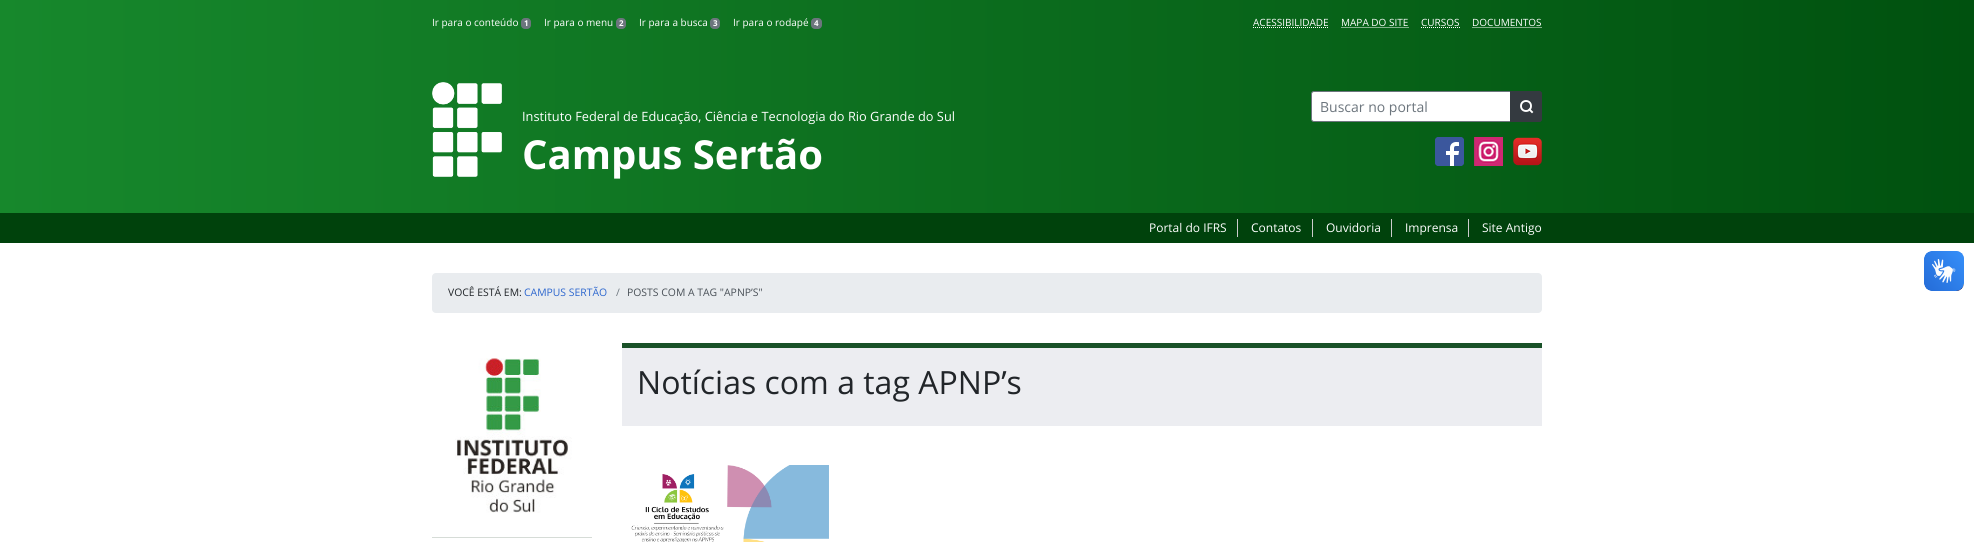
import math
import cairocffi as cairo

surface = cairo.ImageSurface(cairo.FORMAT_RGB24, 1974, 542)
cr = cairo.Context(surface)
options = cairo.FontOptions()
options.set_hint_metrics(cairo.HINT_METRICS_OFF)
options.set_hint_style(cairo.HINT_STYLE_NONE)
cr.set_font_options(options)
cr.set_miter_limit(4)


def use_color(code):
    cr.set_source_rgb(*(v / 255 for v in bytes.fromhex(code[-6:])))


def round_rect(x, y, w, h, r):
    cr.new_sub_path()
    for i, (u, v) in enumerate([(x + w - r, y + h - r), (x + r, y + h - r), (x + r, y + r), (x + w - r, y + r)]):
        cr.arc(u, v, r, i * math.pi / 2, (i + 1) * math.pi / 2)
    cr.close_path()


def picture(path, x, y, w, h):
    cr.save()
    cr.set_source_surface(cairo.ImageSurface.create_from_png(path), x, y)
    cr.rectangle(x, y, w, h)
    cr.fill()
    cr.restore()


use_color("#ffffff")
cr.paint()
gradient = cairo.LinearGradient(0, 122, 1974, 121)
gradient.add_color_stop_rgba(0, 0.09, 0.533, 0.173, 1)
gradient.add_color_stop_rgba(1, 0, 0.318, 0.059, 1)
cr.set_source(gradient)
cr.rectangle(0, 0, 1974, 213)
cr.fill()
cr.select_font_face("Open Sans")
cr.set_font_size(10)
use_color("#ffffff")
cr.move_to(432, 26)
cr.show_text("Ir para o conteúdo")
use_color("#6c757d")
round_rect(521, 18, 10, 11, 4)
cr.fill()
cr.select_font_face("Open Sans", cairo.FONT_SLANT_NORMAL, cairo.FONT_WEIGHT_BOLD)
cr.set_font_size(8)
use_color("#ffffff")
cr.move_to(524, 26)
cr.show_text("1")
cr.select_font_face("Open Sans")
cr.set_font_size(10)
cr.move_to(544, 26)
cr.show_text("Ir para o menu")
use_color("#6c757d")
round_rect(616, 18, 10, 11, 4)
cr.fill()
cr.select_font_face("Open Sans", cairo.FONT_SLANT_NORMAL, cairo.FONT_WEIGHT_BOLD)
cr.set_font_size(8)
use_color("#ffffff")
cr.move_to(619, 26)
cr.show_text("2")
cr.select_font_face("Open Sans")
cr.set_font_size(10)
cr.move_to(639, 26)
cr.show_text("Ir para a busca")
use_color("#6c757d")
round_rect(710, 18, 10, 11, 4)
cr.fill()
cr.select_font_face("Open Sans", cairo.FONT_SLANT_NORMAL, cairo.FONT_WEIGHT_BOLD)
cr.set_font_size(8)
use_color("#ffffff")
cr.move_to(713, 26)
cr.show_text("3")
cr.select_font_face("Open Sans")
cr.set_font_size(10)
cr.move_to(733, 26)
cr.show_text("Ir para o rodapé")
use_color("#6c757d")
round_rect(811, 18, 11, 11, 4)
cr.fill()
cr.select_font_face("Open Sans", cairo.FONT_SLANT_NORMAL, cairo.FONT_WEIGHT_BOLD)
cr.set_font_size(8)
use_color("#ffffff")
cr.move_to(814, 26)
cr.show_text("4")
cr.select_font_face("Open Sans")
cr.set_font_size(10)
cr.move_to(1253, 26)
cr.show_text("ACESSIBILIDADE")
cr.new_path()
cr.move_to(1253, 27.5)
cr.line_to(1328.5, 27.5)
cr.set_line_width(1)
cr.set_dash([1, 1])
cr.stroke()
cr.move_to(1341, 26)
cr.show_text("MAPA DO SITE")
cr.new_path()
cr.move_to(1341.5, 27.5)
cr.line_to(1408.5, 27.5)
cr.stroke()
cr.move_to(1421, 26)
cr.show_text("CURSOS")
cr.new_path()
cr.move_to(1421, 27.5)
cr.line_to(1460, 27.5)
cr.stroke()
cr.move_to(1472, 26)
cr.show_text("DOCUMENTOS")
cr.new_path()
cr.move_to(1472.5, 27.5)
cr.line_to(1542, 27.5)
cr.stroke()
cr.new_path()
cr.move_to(1314, 91.5)
cr.line_to(1510.5, 91.5)
cr.line_to(1510.5, 121.5)
cr.line_to(1314, 121.5)
cr.curve_to(1312.5, 121.5, 1311.5, 120.5, 1311.5, 119)
cr.line_to(1311.5, 94)
cr.curve_to(1311.5, 92.5, 1312.5, 91.5, 1314, 91.5)
cr.close_path()
cr.fill_preserve()
use_color("#6c757d")
cr.set_dash([])
cr.stroke()
cr.set_font_size(14)
cr.move_to(1320, 112)
cr.show_text("Buscar no portal")
use_color("#343a40")
cr.new_path()
cr.move_to(1510, 91)
cr.line_to(1539, 91)
cr.curve_to(1540.5, 91, 1542, 92.5, 1542, 94)
cr.line_to(1542, 119)
cr.curve_to(1542, 120.5, 1540.5, 122, 1539, 122)
cr.line_to(1510, 122)
cr.close_path()
cr.fill()
cr.arc(1526, 106, 5, 0, 2 * math.pi)
use_color("#ffffff")
cr.set_line_width(1.9)
cr.stroke()
cr.new_path()
cr.move_to(1532, 112)
cr.line_to(1529.5, 109.5)
cr.set_line_cap(cairo.LINE_CAP_SQUARE)
cr.stroke()
cr.new_path()
cr.move_to(1510.5, 91.5)
cr.line_to(1539, 91.5)
cr.curve_to(1540.5, 91.5, 1541.5, 92.5, 1541.5, 94)
cr.line_to(1541.5, 119)
cr.curve_to(1541.5, 120.5, 1540.5, 121.5, 1539, 121.5)
cr.line_to(1510.5, 121.5)
cr.close_path()
use_color("#343a40")
cr.set_line_width(1)
cr.set_line_cap(cairo.LINE_CAP_BUTT)
cr.stroke()
picture("img1.png", 1435, 137, 29, 29)
picture("img2.png", 1474, 137, 29, 29)
picture("img3.png", 1513, 137, 29, 29)
picture("img4.png", 432, 82, 70, 95)
cr.set_font_size(12.8)
use_color("#ffffff")
cr.move_to(522, 121)
cr.show_text("Instituto Federal de Educação, Ciência e Tecnologia do Rio Grande do Sul")
cr.select_font_face("Open Sans", cairo.FONT_SLANT_NORMAL, cairo.FONT_WEIGHT_BOLD)
cr.set_font_size(40)
cr.move_to(522, 169)
cr.show_text("Campus Sertão")
use_color("#00420c")
cr.rectangle(0, 213, 1974, 30)
cr.fill()
use_color("#cccccc")
cr.rectangle(1237, 219, 1, 18)
cr.fill()
cr.select_font_face("Open Sans")
cr.set_font_size(12)
use_color("#ffffff")
cr.move_to(1149, 232)
cr.show_text("Portal do IFRS")
use_color("#cccccc")
cr.rectangle(1312, 219, 1, 18)
cr.fill()
use_color("#ffffff")
cr.move_to(1251, 232)
cr.show_text("Contatos")
use_color("#cccccc")
cr.rectangle(1391, 219, 1, 18)
cr.fill()
use_color("#ffffff")
cr.move_to(1326, 232)
cr.show_text("Ouvidoria")
use_color("#cccccc")
cr.rectangle(1468, 219, 1, 18)
cr.fill()
use_color("#ffffff")
cr.move_to(1405, 232)
cr.show_text("Imprensa")
cr.move_to(1482, 232)
cr.show_text("Site Antigo")
use_color("#e9ecef")
round_rect(432, 273, 1110, 40, 4)
cr.fill()
cr.set_font_size(10.4)
use_color("#212529")
cr.move_to(448, 296)
cr.show_text("VOCÊ ESTÁ EM:")
use_color("#2c66ce")
cr.move_to(524, 296)
cr.show_text("CAMPUS SERTÃO")
use_color("#6c757d")
cr.move_to(616, 296)
cr.show_text("/")
use_color("#495057")
cr.move_to(627, 296)
cr.show_text("POSTS COM A TAG \"APNP’S\"")
picture("img5.png", 1924, 251, 40, 40)
picture("img6.png", 1924, 251, 40, 40)
picture("img7.png", 455, 358, 117, 155)
use_color("#d6dcd7")
cr.rectangle(432, 537, 160, 1)
cr.fill()
use_color("#ecedf1")
cr.rectangle(622, 348, 920, 78)
cr.fill()
use_color("#195128")
cr.rectangle(622, 343, 920, 5)
cr.fill()
cr.set_font_size(32)
use_color("#212529")
cr.move_to(637, 394)
cr.show_text("Notícias com a tag APNP’s")
picture("img8.png", 631, 465, 198, 77)
surface.write_to_png("result.png")
